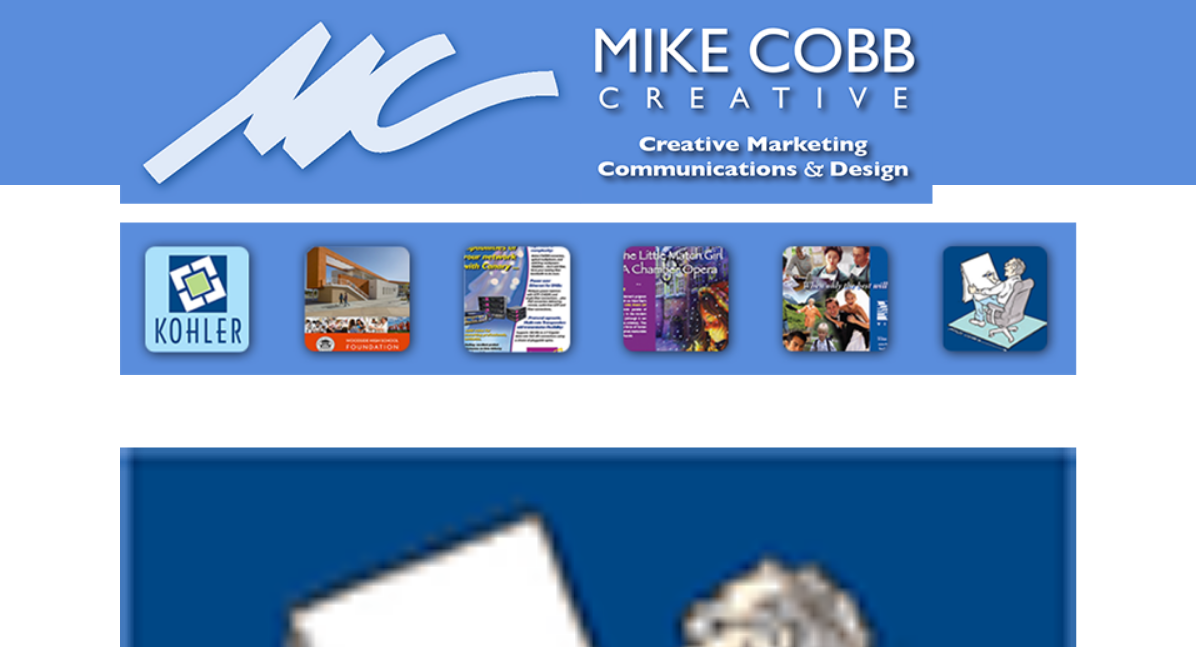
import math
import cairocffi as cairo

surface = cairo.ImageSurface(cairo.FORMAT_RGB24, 1196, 647)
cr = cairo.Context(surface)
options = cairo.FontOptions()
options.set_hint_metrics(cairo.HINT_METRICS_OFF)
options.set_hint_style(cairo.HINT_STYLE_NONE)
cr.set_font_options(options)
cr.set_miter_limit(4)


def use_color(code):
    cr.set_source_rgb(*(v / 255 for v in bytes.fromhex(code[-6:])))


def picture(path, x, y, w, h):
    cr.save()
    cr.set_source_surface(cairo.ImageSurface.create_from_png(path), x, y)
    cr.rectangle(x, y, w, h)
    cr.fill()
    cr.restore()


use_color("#ffffff")
cr.paint()
use_color("#5a8ddc")
cr.rectangle(0, 0, 1196, 185)
cr.fill()
picture("img1.png", 120, 19, 813, 185)
picture("img2.png", 120, 222, 957, 153)
picture("img3.png", 120, 447, 957, 200)
surface.write_to_png("result.png")
